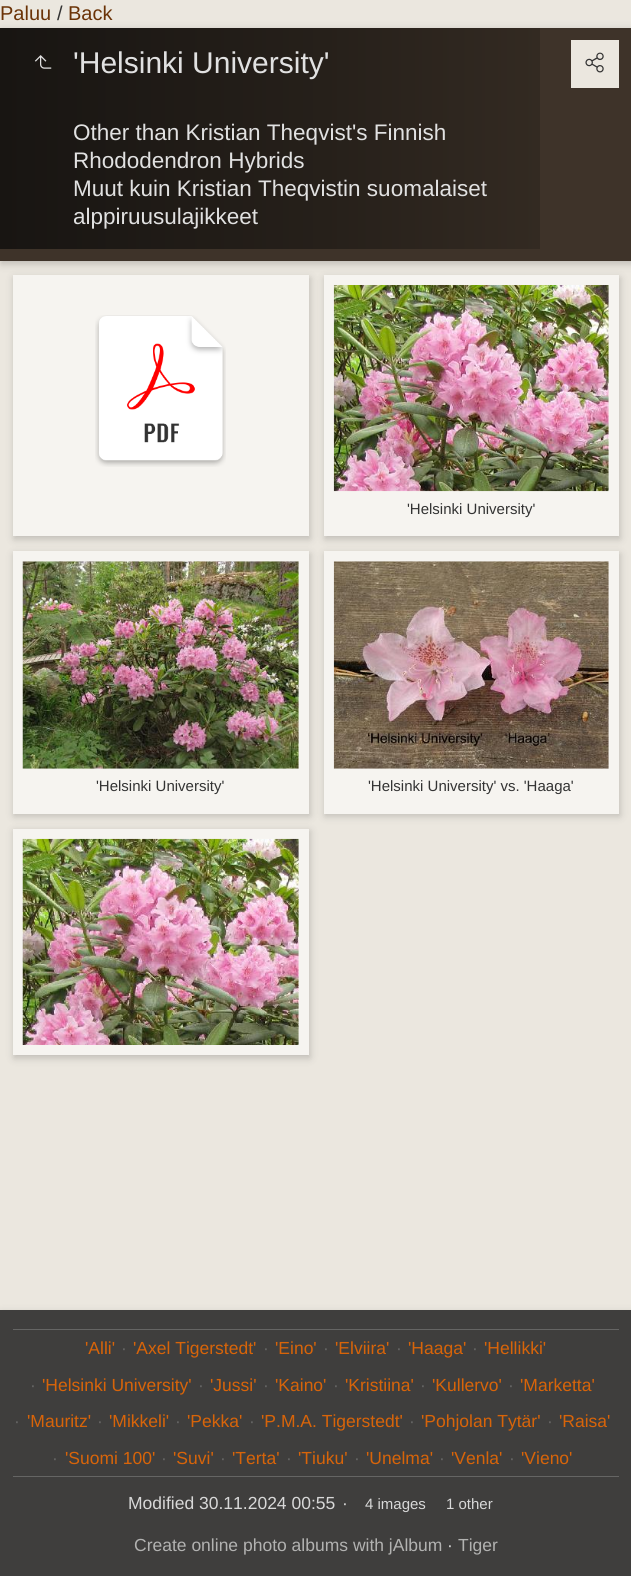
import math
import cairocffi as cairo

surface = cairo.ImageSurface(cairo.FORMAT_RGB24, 631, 1576)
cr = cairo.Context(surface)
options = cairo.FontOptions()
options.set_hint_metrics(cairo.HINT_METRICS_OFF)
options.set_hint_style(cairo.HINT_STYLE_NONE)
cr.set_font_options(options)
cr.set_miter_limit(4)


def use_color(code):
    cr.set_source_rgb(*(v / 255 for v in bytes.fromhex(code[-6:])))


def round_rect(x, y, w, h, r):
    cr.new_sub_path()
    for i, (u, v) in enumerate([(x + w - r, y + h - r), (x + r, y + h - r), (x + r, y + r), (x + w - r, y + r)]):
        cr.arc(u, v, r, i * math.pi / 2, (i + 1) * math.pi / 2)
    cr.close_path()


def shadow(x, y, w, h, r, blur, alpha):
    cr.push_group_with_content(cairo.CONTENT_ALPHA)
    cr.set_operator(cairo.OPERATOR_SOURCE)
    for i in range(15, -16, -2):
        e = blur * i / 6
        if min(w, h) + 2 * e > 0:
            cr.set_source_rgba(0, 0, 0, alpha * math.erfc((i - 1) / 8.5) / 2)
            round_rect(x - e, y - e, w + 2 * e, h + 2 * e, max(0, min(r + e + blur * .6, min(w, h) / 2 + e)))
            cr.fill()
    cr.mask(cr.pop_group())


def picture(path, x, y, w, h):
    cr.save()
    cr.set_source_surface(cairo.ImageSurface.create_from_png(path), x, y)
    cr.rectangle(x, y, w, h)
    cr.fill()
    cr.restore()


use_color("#ebe7df")
cr.paint()
cr.select_font_face("Liberation Sans")
cr.set_font_size(20)
use_color("#6b3307")
cr.move_to(0, 20)
cr.show_text("Paluu")
use_color("#333333")
cr.move_to(57, 20)
cr.show_text("/")
use_color("#6b3307")
cr.move_to(68, 20)
cr.show_text("Back")
use_color("#000000")
shadow(1, 30, 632, 234, 0, 4, 0.19)
use_color("#3e3329")
cr.rectangle(0, 28, 631, 233)
cr.fill()
gradient = cairo.LinearGradient(0, 138, 540, 138)
gradient.add_color_stop_rgba(0, 0.094, 0.082, 0.071, 1)
gradient.add_color_stop_rgba(0.6, 0.149, 0.125, 0.102, 1)
gradient.add_color_stop_rgba(1, 0.2, 0.165, 0.133, 1)
cr.set_source(gradient)
cr.rectangle(0, 28, 540, 221)
cr.fill()
picture("img1.png", 34, 55, 18, 14)
cr.set_font_size(30)
use_color("#e1e1e1")
cr.move_to(73, 73)
cr.show_text("'Helsinki University'")
cr.set_font_size(22.5)
cr.move_to(73, 140)
cr.show_text("Other than Kristian Theqvist's Finnish")
cr.move_to(73, 168)
cr.show_text("Rhododendron Hybrids")
cr.move_to(73, 196)
cr.show_text("Muut kuin Kristian Theqvistin suomalaiset")
cr.move_to(73, 224)
cr.show_text("alppiruusulajikkeet")
use_color("#ebe7df")
cr.rectangle(571, 40, 48, 48)
cr.fill()
picture("img2.png", 585, 52, 19, 21)
cr.save()
cr.set_fill_rule(cairo.FILL_RULE_EVEN_ODD)
cr.new_path()
cr.move_to(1, 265)
cr.line_to(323, 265)
cr.line_to(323, 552)
cr.line_to(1, 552)
cr.close_path()
cr.move_to(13, 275)
cr.line_to(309, 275)
cr.line_to(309, 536)
cr.line_to(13, 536)
cr.close_path()
cr.clip()
use_color("#000000")
shadow(14, 278, 296, 261, 0, 4, 0.19)
cr.restore()
cr.set_source_rgba(1, 1, 1, 0.53)
cr.rectangle(13, 275, 296, 261)
cr.fill()
picture("img3.png", 95, 315, 131, 152)
cr.save()
cr.set_fill_rule(cairo.FILL_RULE_EVEN_ODD)
cr.new_path()
cr.move_to(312, 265)
cr.line_to(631, 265)
cr.line_to(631, 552)
cr.line_to(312, 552)
cr.close_path()
cr.move_to(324, 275)
cr.line_to(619, 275)
cr.line_to(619, 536)
cr.line_to(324, 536)
cr.close_path()
cr.clip()
use_color("#000000")
shadow(325, 278, 295, 261, 0, 4, 0.19)
cr.restore()
cr.rectangle(324, 275, 295, 261)
cr.fill()
picture("img4.png", 333, 285, 276, 207)
cr.set_font_size(15)
use_color("#333333")
cr.move_to(407, 514)
cr.show_text("'Helsinki University'")
cr.save()
cr.set_fill_rule(cairo.FILL_RULE_EVEN_ODD)
cr.new_path()
cr.move_to(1, 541)
cr.line_to(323, 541)
cr.line_to(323, 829)
cr.line_to(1, 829)
cr.close_path()
cr.move_to(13, 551)
cr.line_to(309, 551)
cr.line_to(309, 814)
cr.line_to(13, 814)
cr.close_path()
cr.clip()
use_color("#000000")
shadow(14, 554, 296, 262, 0, 4, 0.19)
cr.restore()
cr.set_source_rgba(1, 1, 1, 0.53)
cr.rectangle(13, 551, 296, 263)
cr.fill()
picture("img5.png", 22, 561, 277, 208)
use_color("#333333")
cr.move_to(96, 791)
cr.show_text("'Helsinki University'")
cr.save()
cr.set_fill_rule(cairo.FILL_RULE_EVEN_ODD)
cr.new_path()
cr.move_to(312, 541)
cr.line_to(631, 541)
cr.line_to(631, 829)
cr.line_to(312, 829)
cr.close_path()
cr.move_to(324, 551)
cr.line_to(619, 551)
cr.line_to(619, 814)
cr.line_to(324, 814)
cr.close_path()
cr.clip()
use_color("#000000")
shadow(325, 554, 295, 262, 0, 4, 0.19)
cr.restore()
cr.set_source_rgba(1, 1, 1, 0.53)
cr.rectangle(324, 551, 295, 263)
cr.fill()
picture("img6.png", 333, 561, 276, 208)
use_color("#333333")
cr.move_to(368, 791)
cr.show_text("'Helsinki University' vs. 'Haaga'")
cr.save()
cr.set_fill_rule(cairo.FILL_RULE_EVEN_ODD)
cr.new_path()
cr.move_to(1, 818)
cr.line_to(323, 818)
cr.line_to(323, 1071)
cr.line_to(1, 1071)
cr.close_path()
cr.move_to(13, 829)
cr.line_to(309, 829)
cr.line_to(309, 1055)
cr.line_to(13, 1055)
cr.close_path()
cr.clip()
use_color("#000000")
shadow(14, 831, 296, 227, 0, 4, 0.19)
cr.restore()
cr.set_source_rgba(1, 1, 1, 0.53)
cr.rectangle(13, 829, 296, 226)
cr.fill()
picture("img7.png", 22, 838, 277, 207)
use_color("#000000")
shadow(1, 1313, 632, 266, 0, 4, 0.19)
use_color("#3f3e3d")
cr.rectangle(0, 1310, 631, 266)
cr.fill()
use_color("#656564")
cr.rectangle(13, 1329, 606, 1)
cr.fill()
cr.rectangle(13, 1476, 606, 1)
cr.fill()
cr.set_font_size(17.5)
use_color("#d86409")
cr.move_to(85, 1354)
cr.show_text("'Alli'")
use_color("#656564")
cr.move_to(121, 1354)
cr.show_text("·")
use_color("#d86409")
cr.move_to(133, 1354)
cr.show_text("'Axel Tigerstedt'")
use_color("#656564")
cr.move_to(263, 1354)
cr.show_text("·")
use_color("#d86409")
cr.move_to(275, 1354)
cr.show_text("'Eino'")
use_color("#656564")
cr.move_to(323, 1354)
cr.show_text("·")
use_color("#d86409")
cr.move_to(335, 1354)
cr.show_text("'Elviira'")
use_color("#656564")
cr.move_to(396, 1354)
cr.show_text("·")
use_color("#d86409")
cr.move_to(408, 1354)
cr.show_text("'Haaga'")
use_color("#656564")
cr.move_to(472, 1354)
cr.show_text("·")
use_color("#d86409")
cr.move_to(484, 1354)
cr.show_text("'Hellikki'")
use_color("#656564")
cr.move_to(30, 1391)
cr.show_text("·")
use_color("#d86409")
cr.move_to(42, 1391)
cr.show_text("'Helsinki University'")
use_color("#656564")
cr.move_to(198, 1391)
cr.show_text("·")
use_color("#d86409")
cr.move_to(210, 1391)
cr.show_text("'Jussi'")
use_color("#656564")
cr.move_to(263, 1391)
cr.show_text("·")
use_color("#d86409")
cr.move_to(275, 1391)
cr.show_text("'Kaino'")
use_color("#656564")
cr.move_to(333, 1391)
cr.show_text("·")
use_color("#d86409")
cr.move_to(345, 1391)
cr.show_text("'Kristiina'")
use_color("#656564")
cr.move_to(420, 1391)
cr.show_text("·")
use_color("#d86409")
cr.move_to(432, 1391)
cr.show_text("'Kullervo'")
use_color("#656564")
cr.move_to(508, 1391)
cr.show_text("·")
use_color("#d86409")
cr.move_to(520, 1391)
cr.show_text("'Marketta'")
use_color("#656564")
cr.move_to(14, 1427)
cr.show_text("·")
use_color("#d86409")
cr.move_to(27, 1427)
cr.show_text("'Mauritz'")
use_color("#656564")
cr.move_to(97, 1427)
cr.show_text("·")
use_color("#d86409")
cr.move_to(109, 1427)
cr.show_text("'Mikkeli'")
use_color("#656564")
cr.move_to(175, 1427)
cr.show_text("·")
use_color("#d86409")
cr.move_to(187, 1427)
cr.show_text("'Pekka'")
use_color("#656564")
cr.move_to(249, 1427)
cr.show_text("·")
use_color("#d86409")
cr.move_to(261, 1427)
cr.show_text("'P.M.A. Tigerstedt'")
use_color("#656564")
cr.move_to(409, 1427)
cr.show_text("·")
use_color("#d86409")
cr.move_to(421, 1427)
cr.show_text("'Pohjolan Tytär'")
use_color("#656564")
cr.move_to(547, 1427)
cr.show_text("·")
use_color("#d86409")
cr.move_to(559, 1427)
cr.show_text("'Raisa'")
use_color("#656564")
cr.move_to(52, 1464)
cr.show_text("·")
use_color("#d86409")
cr.move_to(65, 1464)
cr.show_text("'Suomi 100'")
use_color("#656564")
cr.move_to(161, 1464)
cr.show_text("·")
use_color("#d86409")
cr.move_to(173, 1464)
cr.show_text("'Suvi'")
use_color("#656564")
cr.move_to(220, 1464)
cr.show_text("·")
use_color("#d86409")
cr.move_to(232, 1464)
cr.show_text("'Terta'")
use_color("#656564")
cr.move_to(286, 1464)
cr.show_text("·")
use_color("#d86409")
cr.move_to(298, 1464)
cr.show_text("'Tiuku'")
use_color("#656564")
cr.move_to(354, 1464)
cr.show_text("·")
use_color("#d86409")
cr.move_to(366, 1464)
cr.show_text("'Unelma'")
use_color("#656564")
cr.move_to(439, 1464)
cr.show_text("·")
use_color("#d86409")
cr.move_to(451, 1464)
cr.show_text("'Venla'")
use_color("#656564")
cr.move_to(509, 1464)
cr.show_text("·")
use_color("#d86409")
cr.move_to(521, 1464)
cr.show_text("'Vieno'")
use_color("#d8d8d8")
cr.move_to(128, 1509)
cr.show_text("Modified 30.11.2024 00:55")
cr.move_to(342, 1509)
cr.show_text("·")
cr.set_font_size(15)
cr.move_to(365, 1509)
cr.show_text("4 images")
cr.move_to(446, 1509)
cr.show_text("1 other")
cr.set_font_size(17.5)
use_color("#b2b2b1")
cr.move_to(134, 1551)
cr.show_text("Create online photo albums with jAlbum")
use_color("#d8d8d8")
cr.move_to(447, 1551)
cr.show_text("·")
use_color("#b2b2b1")
cr.move_to(458, 1551)
cr.show_text("Tiger")
surface.write_to_png("result.png")
